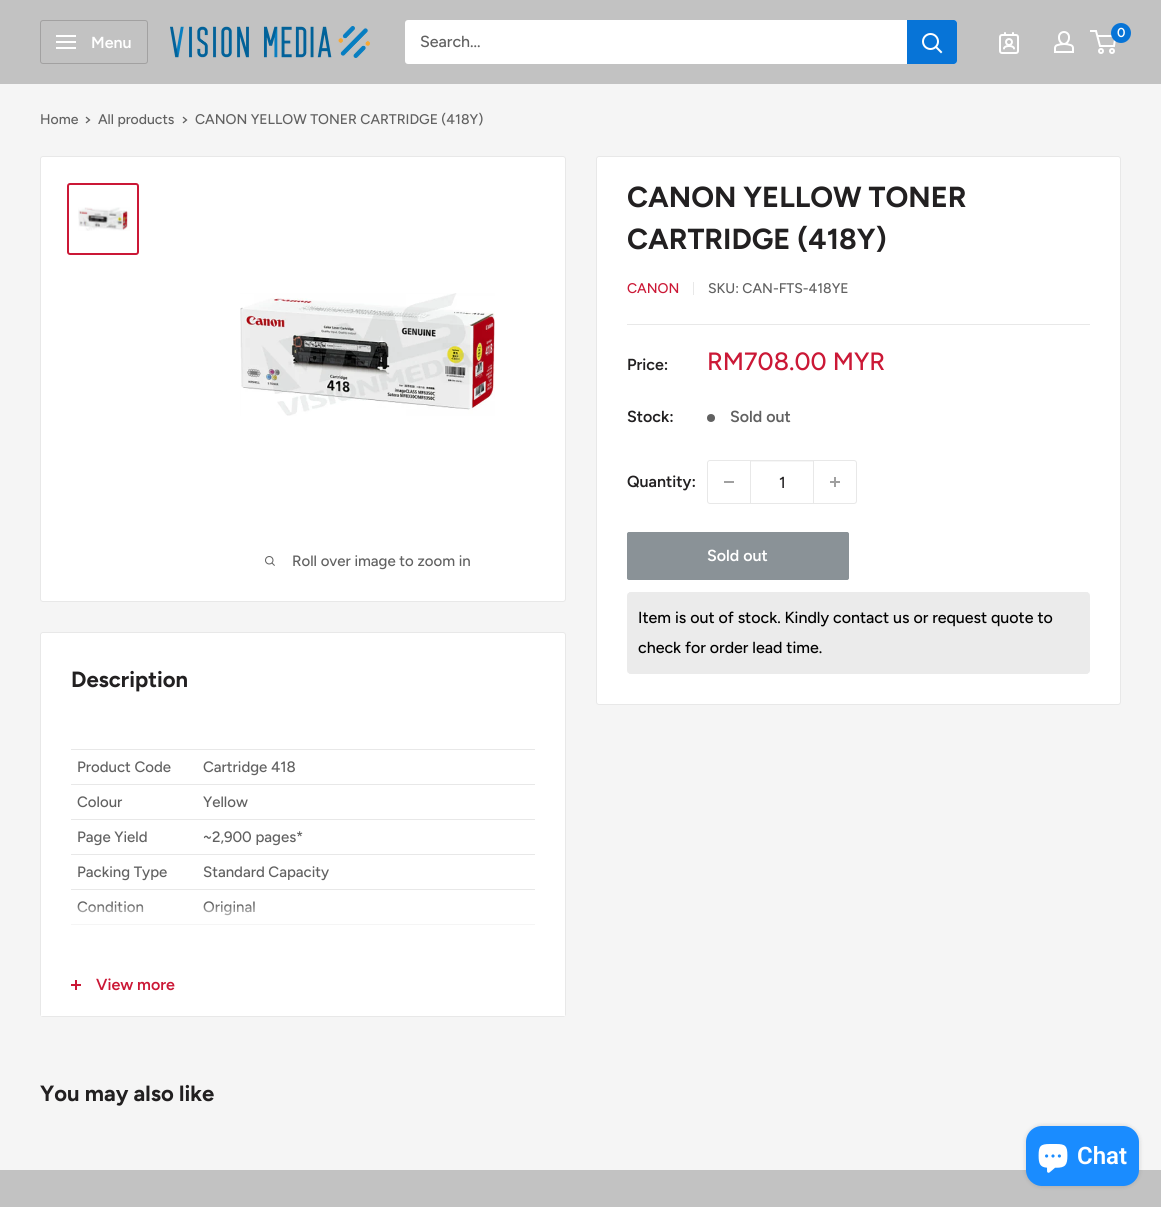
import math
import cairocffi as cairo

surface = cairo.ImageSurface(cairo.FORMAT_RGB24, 1161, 1207)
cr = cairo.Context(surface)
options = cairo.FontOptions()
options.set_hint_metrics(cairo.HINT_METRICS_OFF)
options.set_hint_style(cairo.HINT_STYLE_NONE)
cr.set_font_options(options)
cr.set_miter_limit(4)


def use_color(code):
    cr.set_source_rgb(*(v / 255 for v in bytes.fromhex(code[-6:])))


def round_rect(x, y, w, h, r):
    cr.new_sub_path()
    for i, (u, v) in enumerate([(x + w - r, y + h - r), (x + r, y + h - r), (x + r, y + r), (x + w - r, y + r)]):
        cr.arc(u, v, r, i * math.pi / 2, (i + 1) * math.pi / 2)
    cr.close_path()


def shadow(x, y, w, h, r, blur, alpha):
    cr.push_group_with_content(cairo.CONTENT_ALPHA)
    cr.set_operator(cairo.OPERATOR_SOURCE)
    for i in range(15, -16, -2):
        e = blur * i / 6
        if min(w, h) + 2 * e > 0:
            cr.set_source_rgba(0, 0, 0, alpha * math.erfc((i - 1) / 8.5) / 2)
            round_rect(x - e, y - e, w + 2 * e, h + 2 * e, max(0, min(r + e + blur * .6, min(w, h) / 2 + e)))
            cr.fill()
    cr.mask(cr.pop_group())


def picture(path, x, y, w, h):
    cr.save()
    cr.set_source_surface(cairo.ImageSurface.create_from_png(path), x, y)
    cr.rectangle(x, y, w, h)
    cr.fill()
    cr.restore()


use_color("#f5f5f5")
cr.paint()
use_color("#c2c2c2")
cr.rectangle(0, 0, 1161, 84)
cr.fill()
picture("img1.png", 170, 26, 200, 32)
picture("img2.png", 999, 32, 20, 22)
picture("img3.png", 1054, 31, 20, 22)
cr.arc(1101, 51, 2, 0, 2 * math.pi)
use_color("#ffffff")
cr.stroke()
cr.arc(1112, 51, 2, 0, 2 * math.pi)
cr.stroke()
cr.new_path()
cr.move_to(1097.5, 36)
cr.line_to(1115.5, 36)
cr.line_to(1114, 46)
cr.line_to(1100, 46)
cr.line_to(1096, 31)
cr.line_to(1090, 31)
cr.stroke()
use_color("#0774d7")
cr.arc(1121, 33, 10, 0, 2 * math.pi)
cr.fill()
cr.select_font_face("Figtree SemiBold")
cr.set_font_size(13)
use_color("#ffffff")
cr.move_to(1117, 37)
cr.show_text("0")
round_rect(40.5, 20.5, 107, 43, 2.5)
use_color("#a2a1a1")
cr.set_line_width(1)
cr.stroke()
picture("img4.png", 56, 35, 20, 14)
cr.set_font_size(16)
use_color("#ffffff")
cr.move_to(91, 48)
cr.show_text("Menu")
round_rect(405, 20, 552, 44, 3)
cr.fill()
cr.select_font_face("Figtree Medium")
use_color("#616161")
cr.move_to(420, 47)
cr.show_text("Search...")
use_color("#0774d7")
cr.new_path()
cr.move_to(907, 20)
cr.line_to(954, 20)
cr.curve_to(955.5, 20, 957, 21.5, 957, 23)
cr.line_to(957, 61)
cr.curve_to(957, 62.5, 955.5, 64, 954, 64)
cr.line_to(907, 64)
cr.close_path()
cr.fill()
cr.new_path()
cr.move_to(941, 52)
cr.line_to(936, 47)
use_color("#ffffff")
cr.set_line_width(2)
cr.set_line_cap(cairo.LINE_CAP_SQUARE)
cr.stroke()
cr.arc(930.5, 41.5, 7.5, 0, 2 * math.pi)
cr.set_line_cap(cairo.LINE_CAP_BUTT)
cr.stroke()
cr.set_font_size(14)
use_color("#616161")
cr.move_to(40, 124)
cr.show_text("Home")
cr.new_path()
cr.move_to(86.5, 117.5)
cr.line_to(89.5, 120)
cr.line_to(86.5, 122.5)
cr.set_line_width(1.3)
cr.set_line_cap(cairo.LINE_CAP_SQUARE)
cr.stroke()
cr.move_to(98, 124)
cr.show_text("All products")
cr.new_path()
cr.move_to(183.5, 117.5)
cr.line_to(186.5, 120)
cr.line_to(183.5, 122.5)
cr.stroke()
cr.move_to(195, 124)
cr.show_text("CANON YELLOW TONER CARTRIDGE (418Y)")
use_color("#ffffff")
round_rect(40.5, 156.5, 525, 445, 2.5)
cr.fill_preserve()
use_color("#e8e8e8")
cr.set_line_width(1)
cr.set_line_cap(cairo.LINE_CAP_BUTT)
cr.stroke()
round_rect(68, 184, 70, 70, 2)
use_color("#cb1836")
cr.set_line_width(2)
cr.stroke()
picture("img5.png", 78, 207, 52, 24)
picture("img6.png", 240, 293, 255, 123)
picture("img7.png", 265, 556, 10, 10)
cr.set_font_size(15)
use_color("#616161")
cr.move_to(292, 566)
cr.show_text("Roll over image to zoom in")
use_color("#ffffff")
round_rect(596.5, 156.5, 524, 548, 2.5)
cr.fill_preserve()
use_color("#e8e8e8")
cr.set_line_width(1)
cr.stroke()
cr.select_font_face("Figtree", cairo.FONT_SLANT_NORMAL, cairo.FONT_WEIGHT_BOLD)
cr.set_font_size(29)
use_color("#222021")
cr.move_to(627, 207)
cr.show_text("CANON YELLOW TONER")
cr.move_to(627, 249)
cr.show_text("CARTRIDGE (418Y)")
cr.select_font_face("Figtree Medium")
cr.set_font_size(14)
use_color("#cb1836")
cr.move_to(627, 293)
cr.show_text("CANON")
use_color("#e8e8e8")
cr.rectangle(693, 282, 1, 13)
cr.fill()
use_color("#616161")
cr.move_to(708, 293)
cr.show_text("SKU: CAN-FTS-418YE")
use_color("#e8e8e8")
cr.rectangle(627, 324, 463, 1)
cr.fill()
cr.select_font_face("Figtree SemiBold")
cr.set_font_size(16)
use_color("#222021")
cr.move_to(627, 370)
cr.show_text("Price:")
cr.select_font_face("Figtree Medium")
cr.set_font_size(25)
use_color("#cb1836")
cr.move_to(707, 370)
cr.show_text("RM708.00 MYR")
cr.select_font_face("Figtree SemiBold")
cr.set_font_size(16)
use_color("#222021")
cr.move_to(627, 422)
cr.show_text("Stock:")
use_color("#616161")
cr.new_path()
cr.arc(711, 418, 4, 0, 2 * math.pi)
cr.fill()
cr.move_to(730, 422)
cr.show_text("Sold out")
use_color("#222021")
cr.move_to(627, 487)
cr.show_text("Quantity:")
round_rect(707.5, 460.5, 149, 43, 2.5)
use_color("#e8e8e8")
cr.stroke()
use_color("#a0a0a0")
cr.rectangle(724, 481, 10, 2)
cr.fill()
use_color("#f6f6f6")
cr.rectangle(751, 461, 62, 1)
cr.fill()
use_color("#e8e8e8")
cr.rectangle(813, 461, 1, 42)
cr.fill()
cr.rectangle(750, 461, 1, 42)
cr.fill()
cr.select_font_face("Figtree Medium")
use_color("#222021")
cr.move_to(779, 488)
cr.show_text("1")
picture("img8.png", 830, 477, 10, 10)
use_color("#8a9297")
round_rect(627.5, 532.5, 221, 47, 1.5)
cr.fill_preserve()
cr.stroke()
cr.select_font_face("Figtree SemiBold")
use_color("#ffffff")
cr.move_to(707, 561)
cr.show_text("Sold out")
use_color("#ebebeb")
round_rect(627, 592, 463, 82, 4)
cr.fill()
cr.new_path()
cr.move_to(631, 592.5)
cr.line_to(1086, 592.5)
cr.curve_to(1088, 592.5, 1089.5, 594, 1089.5, 596)
cr.line_to(1089.5, 670)
cr.curve_to(1089.5, 672, 1088, 673.5, 1086, 673.5)
cr.line_to(631, 673.5)
cr.curve_to(629, 673.5, 627.5, 672, 627.5, 670)
cr.line_to(627.5, 596)
cr.curve_to(627.5, 594, 629, 592.5, 631, 592.5)
cr.close_path()
cr.set_dash([1, 1])
cr.stroke()
cr.select_font_face("Figtree Medium")
use_color("#000000")
cr.move_to(638, 623)
cr.show_text("Item is out of stock. Kindly contact us or request quote to")
cr.move_to(638, 653)
cr.show_text("check for order lead time.")
use_color("#ffffff")
round_rect(40.5, 632.5, 525, 384, 2.5)
cr.fill_preserve()
use_color("#e8e8e8")
cr.set_dash([])
cr.stroke()
cr.select_font_face("Figtree", cairo.FONT_SLANT_NORMAL, cairo.FONT_WEIGHT_BOLD)
cr.set_font_size(22)
use_color("#222021")
cr.move_to(71, 687)
cr.show_text("Description")
use_color("#e8e8e8")
cr.rectangle(71, 749, 464, 1)
cr.fill()
cr.select_font_face("Figtree Medium")
cr.set_font_size(15)
use_color("#616161")
cr.move_to(77, 772)
cr.show_text("Product Code")
cr.move_to(203, 772)
cr.show_text("Cartridge 418")
use_color("#e8e8e8")
cr.rectangle(71, 784, 464, 1)
cr.fill()
use_color("#616161")
cr.move_to(77, 807)
cr.show_text("Colour")
cr.move_to(203, 807)
cr.show_text("Yellow")
use_color("#e8e8e8")
cr.rectangle(71, 819, 464, 1)
cr.fill()
use_color("#616161")
cr.move_to(77, 842)
cr.show_text("Page Yield")
cr.move_to(203, 842)
cr.show_text("~2,900 pages*")
use_color("#e8e8e8")
cr.rectangle(71, 854, 464, 1)
cr.fill()
use_color("#616161")
cr.move_to(77, 877)
cr.show_text("Packing Type")
cr.move_to(203, 877)
cr.show_text("Standard Capacity")
use_color("#e8e8e8")
cr.rectangle(71, 889, 464, 1)
cr.fill()
use_color("#616161")
cr.move_to(77, 912)
cr.show_text("Condition")
cr.move_to(203, 912)
cr.show_text("Original")
use_color("#e8e8e8")
cr.rectangle(71, 924, 464, 1)
cr.fill()
use_color("#ffffff")
cr.rectangle(41, 1014, 524, 2)
cr.fill()
gradient = cairo.LinearGradient(303, 904, 303, 954)
gradient.add_color_stop_rgba(0, 1, 1, 1, 0)
gradient.add_color_stop_rgba(0.15, 1, 1, 1, 0.4)
gradient.add_color_stop_rgba(1, 1, 1, 1, 1)
cr.set_source(gradient)
cr.rectangle(71, 904, 464, 21)
cr.fill()
use_color("#cb1836")
cr.rectangle(75, 980, 2, 10)
cr.fill()
cr.rectangle(71, 984, 10, 2)
cr.fill()
cr.select_font_face("Figtree SemiBold")
cr.set_font_size(16)
cr.move_to(96, 990)
cr.show_text("View more")
cr.select_font_face("Figtree", cairo.FONT_SLANT_NORMAL, cairo.FONT_WEIGHT_BOLD)
cr.set_font_size(22)
use_color("#222021")
cr.move_to(40, 1101)
cr.show_text("You may also like")
use_color("#c2c2c2")
cr.rectangle(0, 1170, 1161, 37)
cr.fill()
use_color("#000000")
shadow(1026, 1126, 113, 60, 16, 2.5, 0.15)
use_color("#1a8cff")
round_rect(1026, 1126, 113, 60, 16)
cr.fill()
picture("img9.png", 1038, 1144, 30, 29)
cr.select_font_face("Roboto SemiBold")
cr.set_font_size(24)
use_color("#ffffff")
cr.move_to(1077, 1164)
cr.show_text("Chat")
surface.write_to_png("result.png")
